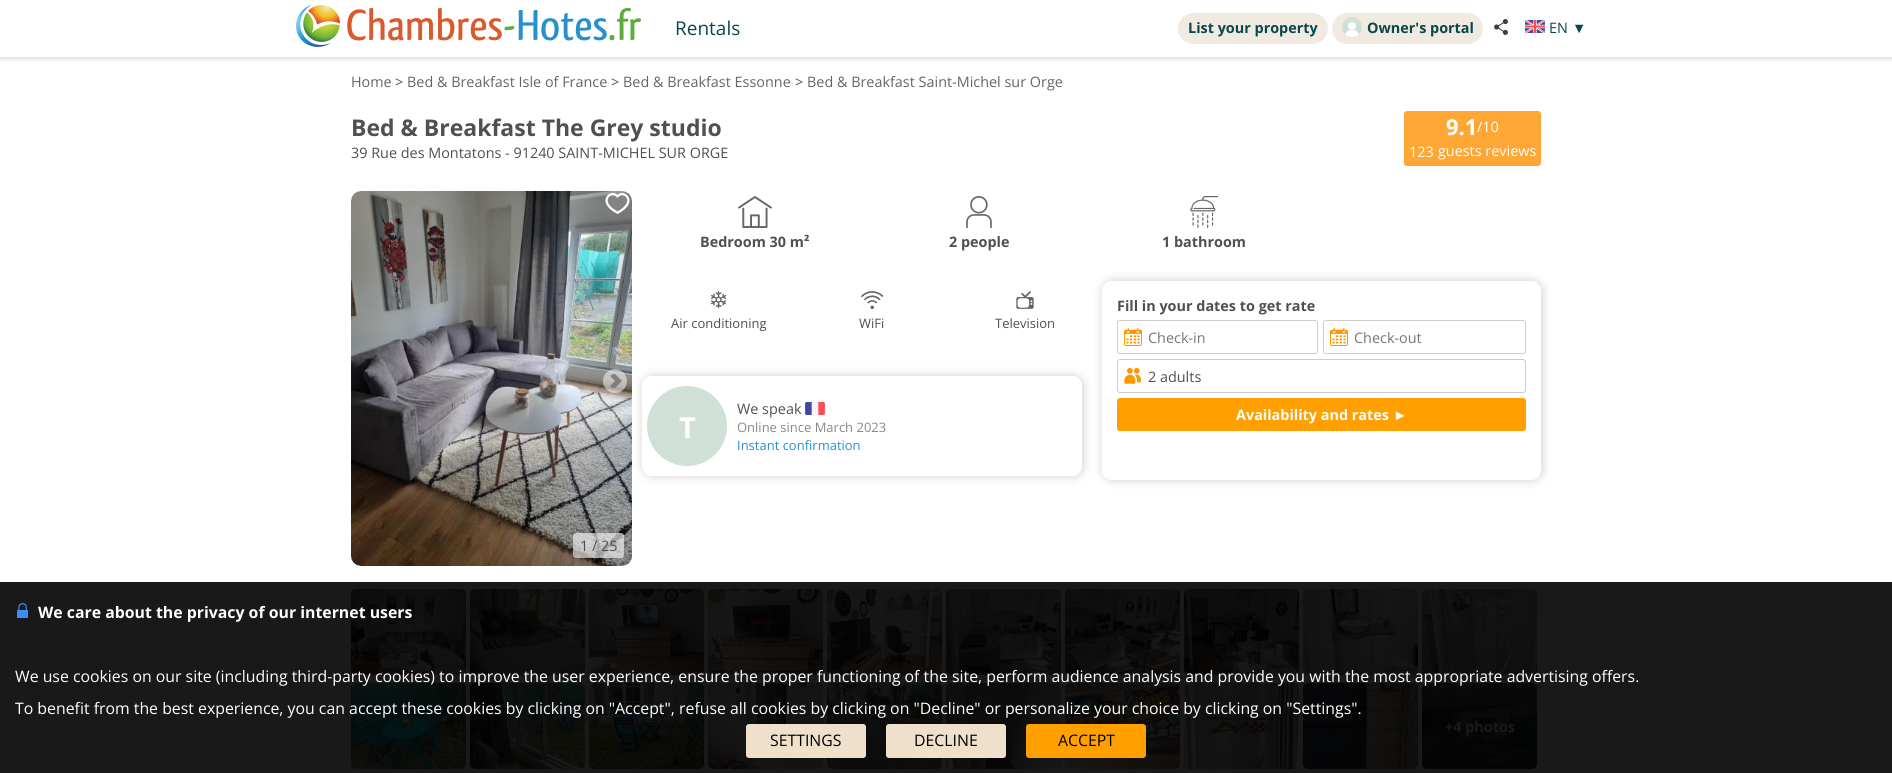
import math
import cairocffi as cairo

surface = cairo.ImageSurface(cairo.FORMAT_RGB24, 1892, 773)
cr = cairo.Context(surface)
options = cairo.FontOptions()
options.set_hint_metrics(cairo.HINT_METRICS_OFF)
options.set_hint_style(cairo.HINT_STYLE_NONE)
cr.set_font_options(options)
cr.set_miter_limit(4)


def use_color(code):
    cr.set_source_rgb(*(v / 255 for v in bytes.fromhex(code[-6:])))


def round_rect(x, y, w, h, r):
    cr.new_sub_path()
    for i, (u, v) in enumerate([(x + w - r, y + h - r), (x + r, y + h - r), (x + r, y + r), (x + w - r, y + r)]):
        cr.arc(u, v, r, i * math.pi / 2, (i + 1) * math.pi / 2)
    cr.close_path()


def shadow(x, y, w, h, r, blur, alpha):
    cr.push_group_with_content(cairo.CONTENT_ALPHA)
    cr.set_operator(cairo.OPERATOR_SOURCE)
    for i in range(15, -16, -2):
        e = blur * i / 6
        if min(w, h) + 2 * e > 0:
            cr.set_source_rgba(0, 0, 0, alpha * math.erfc((i - 1) / 8.5) / 2)
            round_rect(x - e, y - e, w + 2 * e, h + 2 * e, max(0, min(r + e + blur * .6, min(w, h) / 2 + e)))
            cr.fill()
    cr.mask(cr.pop_group())


def picture(path, x, y, w, h):
    cr.save()
    cr.set_source_surface(cairo.ImageSurface.create_from_png(path), x, y)
    cr.rectangle(x, y, w, h)
    cr.fill()
    cr.restore()


use_color("#ffffff")
cr.paint()
use_color("#191919")
cr.rectangle(0, 582, 1892, 191)
cr.fill()
cr.save()
cr.rectangle(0, 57, 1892, 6)
cr.clip()
use_color("#cccccc")
shadow(0, 1, 1892, 57, 0, 2.5, 1)
cr.restore()
picture("img1.png", 296, 5, 345, 42)
cr.select_font_face("Open Sans")
cr.set_font_size(19)
use_color("#07474f")
cr.move_to(675, 35)
cr.show_text("Rentals")
use_color("#f1eae0")
round_rect(1178, 13, 150, 31, 15.5)
cr.fill()
cr.select_font_face("Open Sans", cairo.FONT_SLANT_NORMAL, cairo.FONT_WEIGHT_BOLD)
cr.set_font_size(14.4)
use_color("#07474f")
cr.move_to(1188, 33)
cr.show_text("List your property")
use_color("#f1eae0")
round_rect(1332, 13, 151, 31, 15.5)
cr.fill()
picture("img2.png", 1342, 17, 20, 20)
use_color("#07474f")
cr.move_to(1367, 33)
cr.show_text("Owner's portal")
picture("img3.png", 1494, 19, 14, 16)
picture("img4.png", 1525, 20, 20, 13)
cr.select_font_face("Open Sans")
cr.move_to(1549, 33)
cr.show_text("EN")
cr.select_font_face("Liberation Sans")
cr.move_to(1572, 33)
cr.show_text("▼")
cr.select_font_face("Open Sans")
use_color("#656565")
cr.move_to(351, 87)
cr.show_text("Home")
use_color("#505050")
cr.move_to(395, 87)
cr.show_text(">")
use_color("#656565")
cr.move_to(407, 87)
cr.show_text("Bed & Breakfast Isle of France")
use_color("#505050")
cr.move_to(611, 87)
cr.show_text(">")
use_color("#656565")
cr.move_to(623, 87)
cr.show_text("Bed & Breakfast Essonne")
use_color("#505050")
cr.move_to(795, 87)
cr.show_text(">")
use_color("#656565")
cr.move_to(807, 87)
cr.show_text("Bed & Breakfast Saint-Michel sur Orge")
cr.select_font_face("Open Sans", cairo.FONT_SLANT_NORMAL, cairo.FONT_WEIGHT_BOLD)
cr.set_font_size(23)
use_color("#505050")
cr.move_to(351, 136)
cr.show_text("Bed & Breakfast The Grey studio")
use_color("#fea735")
round_rect(1404, 111, 137, 55, 3)
cr.fill()
cr.set_font_size(22)
use_color("#ffffff")
cr.move_to(1446, 135)
cr.show_text("9.1")
cr.select_font_face("Open Sans")
cr.set_font_size(14.4)
cr.move_to(1477, 132)
cr.show_text("/10")
cr.move_to(1409, 157)
cr.show_text("123")
cr.move_to(1438, 156)
cr.show_text("guests reviews")
use_color("#505050")
cr.move_to(351, 158)
cr.show_text("39 Rue des Montatons - 91240 SAINT-MICHEL SUR ORGE")
picture("img5.png", 738, 196, 34, 32)
cr.select_font_face("Open Sans", cairo.FONT_SLANT_NORMAL, cairo.FONT_WEIGHT_BOLD)
cr.move_to(700, 247)
cr.show_text("Bedroom 30 m²")
picture("img6.png", 966, 196, 26, 32)
cr.move_to(949, 247)
cr.show_text("2 people")
picture("img7.png", 1190, 196, 28, 32)
cr.move_to(1162, 247)
cr.show_text("1 bathroom")
picture("img8.png", 711, 291, 15, 18)
cr.select_font_face("Open Sans")
cr.set_font_size(13)
cr.move_to(671, 328)
cr.show_text("Air conditioning")
picture("img9.png", 861, 291, 22, 18)
cr.move_to(859, 328)
cr.show_text("WiFi")
picture("img10.png", 1016, 291, 18, 18)
cr.move_to(995, 328)
cr.show_text("Television")
cr.save()
cr.set_fill_rule(cairo.FILL_RULE_EVEN_ODD)
cr.new_path()
cr.move_to(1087, 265)
cr.line_to(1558, 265)
cr.line_to(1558, 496)
cr.line_to(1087, 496)
cr.close_path()
cr.move_to(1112, 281)
cr.line_to(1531, 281)
cr.curve_to(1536.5, 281, 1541, 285.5, 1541, 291)
cr.line_to(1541, 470)
cr.curve_to(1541, 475.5, 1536.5, 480, 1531, 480)
cr.line_to(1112, 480)
cr.curve_to(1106.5, 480, 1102, 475.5, 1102, 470)
cr.line_to(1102, 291)
cr.curve_to(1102, 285.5, 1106.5, 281, 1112, 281)
cr.close_path()
cr.clip()
use_color("#cccccc")
shadow(1103, 281, 439, 199, 10, 5, 1)
cr.restore()
cr.select_font_face("Open Sans", cairo.FONT_SLANT_NORMAL, cairo.FONT_WEIGHT_BOLD)
cr.set_font_size(14.4)
cr.move_to(1117, 311)
cr.show_text("Fill in your dates to get rate")
picture("img11.png", 1124, 328, 18, 18)
round_rect(1117.5, 320.5, 200, 33, 2.5)
use_color("#cccccc")
cr.set_line_width(1)
cr.stroke()
cr.select_font_face("Open Sans")
use_color("#757575")
cr.move_to(1148, 343)
cr.show_text("Check-in")
picture("img11.png", 1330, 328, 18, 18)
round_rect(1323.5, 320.5, 202, 33, 2.5)
use_color("#cccccc")
cr.stroke()
use_color("#757575")
cr.move_to(1354, 343)
cr.show_text("Check-out")
picture("img12.png", 1124, 367, 17, 17)
round_rect(1117.5, 359.5, 408, 33, 2.5)
use_color("#cccccc")
cr.stroke()
use_color("#505050")
cr.move_to(1148, 382)
cr.show_text("2 adults")
use_color("#ffa000")
round_rect(1117, 398, 409, 33, 3)
cr.fill()
cr.select_font_face("Open Sans", cairo.FONT_SLANT_NORMAL, cairo.FONT_WEIGHT_BOLD)
use_color("#ffffff")
cr.move_to(1236, 420)
cr.show_text("Availability and rates")
cr.select_font_face("Liberation Sans", cairo.FONT_SLANT_NORMAL, cairo.FONT_WEIGHT_BOLD)
cr.move_to(1393, 420)
cr.show_text("►")
picture("img14.png", 351, 191, 281, 375)
cr.save()
cr.set_fill_rule(cairo.FILL_RULE_EVEN_ODD)
cr.new_path()
cr.move_to(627, 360)
cr.line_to(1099, 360)
cr.line_to(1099, 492)
cr.line_to(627, 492)
cr.close_path()
cr.move_to(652, 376)
cr.line_to(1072, 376)
cr.curve_to(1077.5, 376, 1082, 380.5, 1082, 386)
cr.line_to(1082, 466)
cr.curve_to(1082, 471.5, 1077.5, 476, 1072, 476)
cr.line_to(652, 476)
cr.curve_to(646.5, 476, 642, 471.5, 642, 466)
cr.line_to(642, 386)
cr.curve_to(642, 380.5, 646.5, 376, 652, 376)
cr.close_path()
cr.clip()
use_color("#cccccc")
shadow(643, 376, 440, 100, 10, 5, 1)
cr.restore()
use_color("#cfe0d6")
cr.arc(687, 426, 40, 0, 2 * math.pi)
cr.fill()
cr.select_font_face("Open Sans", cairo.FONT_SLANT_NORMAL, cairo.FONT_WEIGHT_BOLD)
cr.set_font_size(29)
use_color("#ffffff")
cr.move_to(679, 438)
cr.show_text("T")
cr.select_font_face("Open Sans")
cr.set_font_size(14.4)
use_color("#505050")
cr.move_to(737, 414)
cr.show_text("We speak")
picture("img13.png", 805, 402, 20, 13)
cr.set_font_size(13)
use_color("#888888")
cr.move_to(737, 432)
cr.show_text("Online since March 2023")
use_color("#298fce")
cr.move_to(737, 450)
cr.show_text("Instant confirmation")
picture("img15.png", 605, 193, 25, 21)
cr.set_source_rgba(1, 1, 1, 0.5)
cr.arc(615, 381, 12, 0, 2 * math.pi)
cr.fill()
picture("img16.png", 610, 374, 12, 14)
cr.set_source_rgba(1, 1, 1, 0.6)
round_rect(573, 533, 51, 25, 3)
cr.fill()
cr.set_font_size(14.4)
use_color("#505050")
cr.move_to(580, 551)
cr.show_text("1 / 25")
picture("img17.png", 351, 589, 115, 86)
picture("img18.png", 470, 589, 115, 86)
picture("img19.png", 589, 589, 115, 86)
picture("img20.png", 708, 589, 115, 86)
picture("img21.png", 827, 589, 115, 86)
picture("img22.png", 946, 589, 115, 86)
picture("img23.png", 1065, 589, 115, 86)
picture("img24.png", 1184, 589, 115, 86)
picture("img25.png", 1303, 589, 115, 86)
picture("img26.png", 1422, 589, 115, 86)
picture("img27.png", 351, 683, 115, 86)
picture("img28.png", 470, 683, 115, 86)
picture("img29.png", 589, 683, 115, 86)
picture("img30.png", 708, 683, 115, 86)
picture("img31.png", 827, 683, 115, 86)
picture("img32.png", 946, 683, 115, 86)
picture("img33.png", 1065, 683, 115, 86)
picture("img34.png", 1184, 683, 115, 86)
picture("img35.png", 1303, 683, 115, 86)
picture("img36.png", 1422, 683, 115, 86)
cr.set_source_rgba(0, 0, 0, 0.6)
round_rect(1422, 683, 115, 86, 5)
cr.fill()
cr.select_font_face("Open Sans", cairo.FONT_SLANT_NORMAL, cairo.FONT_WEIGHT_BOLD)
use_color("#191919")
cr.move_to(1445, 732)
cr.show_text("+4 photos")
picture("img37.png", 17, 603, 11, 15)
cr.set_font_size(15.84)
use_color("#ffffff")
cr.move_to(38, 618)
cr.show_text("We care about the privacy of our internet users")
cr.select_font_face("Open Sans")
cr.move_to(15, 682)
cr.show_text("We use cookies on our site (including third-party cookies) to improve the user experience, ensure the proper functioning of the site, perform audience analysis and provide you with the most appropriate advertising offers.")
cr.move_to(15, 714)
cr.show_text("To benefit from the best experience, you can accept these cookies by clicking on \"Accept\", refuse all cookies by clicking on \"Decline\" or personalize your choice by clicking on \"Settings\".")
use_color("#efe0cc")
round_rect(746, 724, 120, 34, 3)
cr.fill()
use_color("#000000")
cr.move_to(770, 746)
cr.show_text("SETTINGS")
use_color("#efe0cc")
round_rect(886, 724, 120, 34, 3)
cr.fill()
use_color("#000000")
cr.move_to(914, 746)
cr.show_text("DECLINE")
use_color("#ffa000")
round_rect(1026, 724, 120, 34, 3)
cr.fill()
use_color("#000000")
cr.move_to(1058, 746)
cr.show_text("ACCEPT")
surface.write_to_png("result.png")
